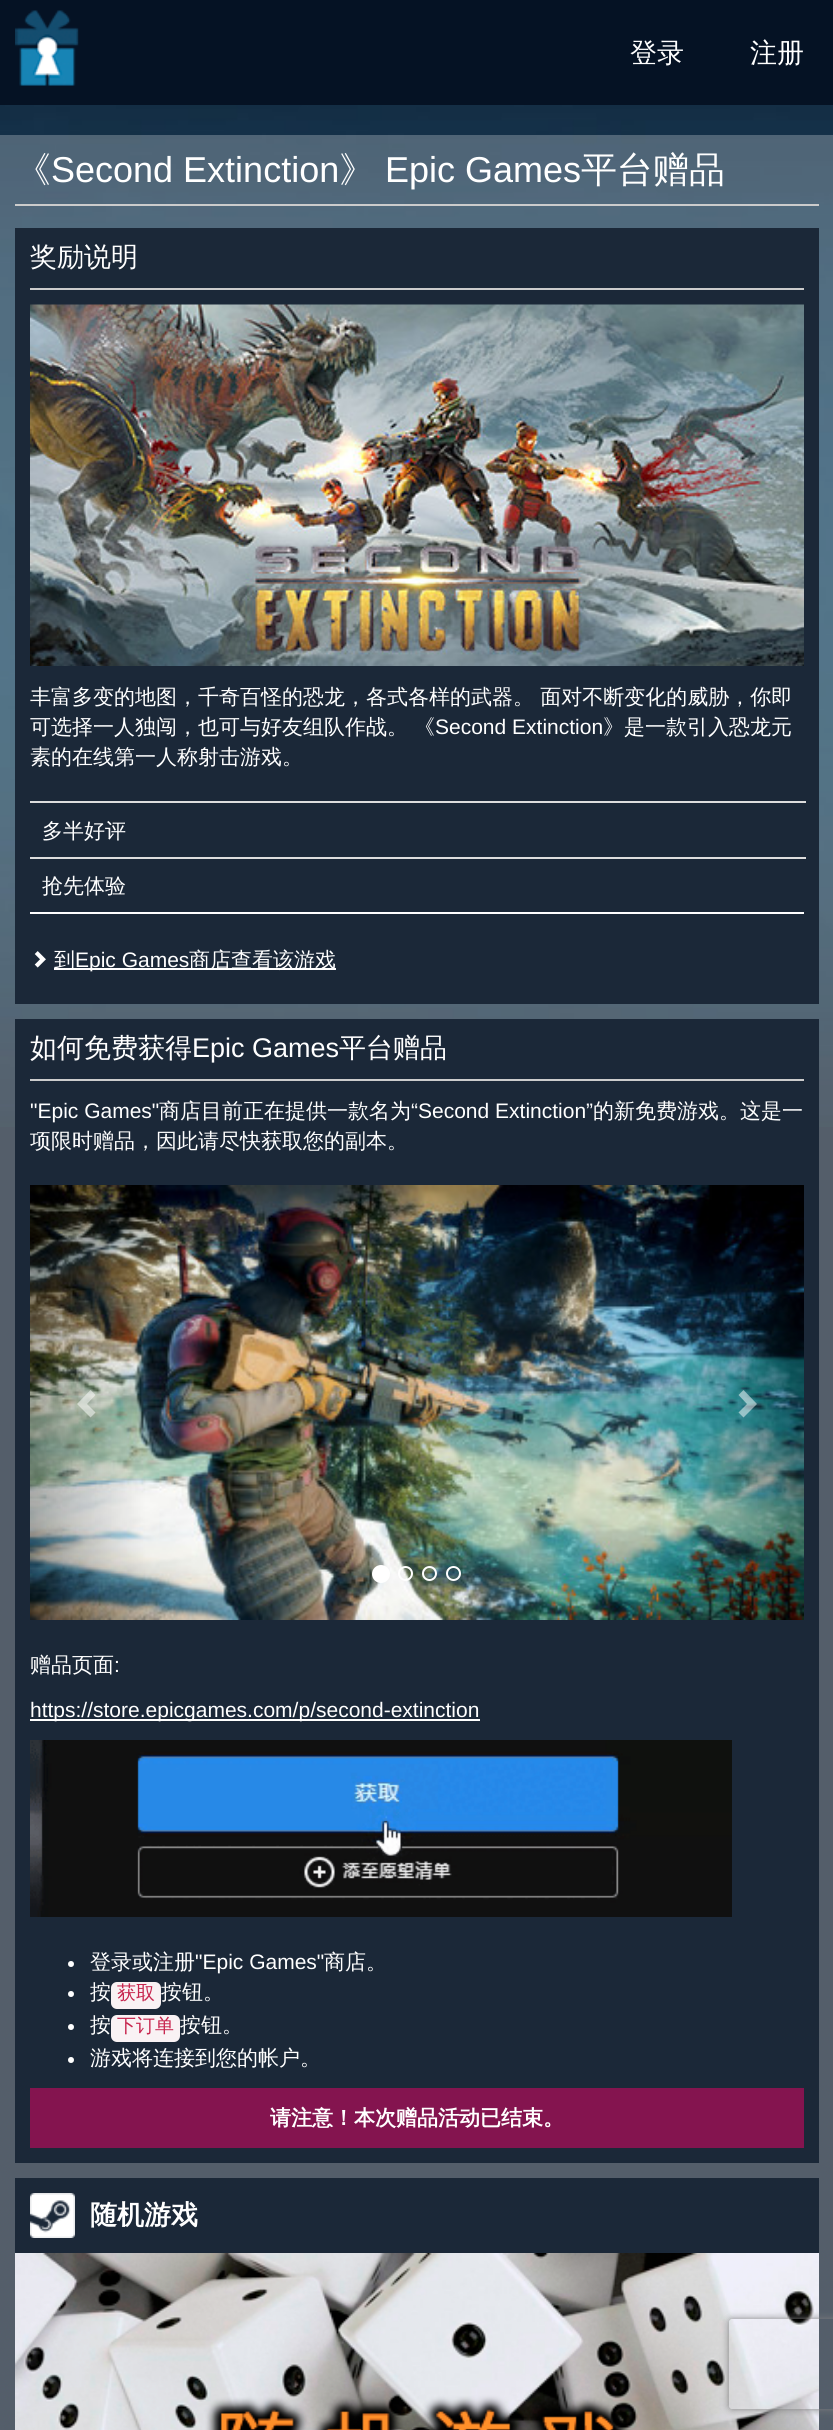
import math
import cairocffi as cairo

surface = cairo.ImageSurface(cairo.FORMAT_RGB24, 833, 2430)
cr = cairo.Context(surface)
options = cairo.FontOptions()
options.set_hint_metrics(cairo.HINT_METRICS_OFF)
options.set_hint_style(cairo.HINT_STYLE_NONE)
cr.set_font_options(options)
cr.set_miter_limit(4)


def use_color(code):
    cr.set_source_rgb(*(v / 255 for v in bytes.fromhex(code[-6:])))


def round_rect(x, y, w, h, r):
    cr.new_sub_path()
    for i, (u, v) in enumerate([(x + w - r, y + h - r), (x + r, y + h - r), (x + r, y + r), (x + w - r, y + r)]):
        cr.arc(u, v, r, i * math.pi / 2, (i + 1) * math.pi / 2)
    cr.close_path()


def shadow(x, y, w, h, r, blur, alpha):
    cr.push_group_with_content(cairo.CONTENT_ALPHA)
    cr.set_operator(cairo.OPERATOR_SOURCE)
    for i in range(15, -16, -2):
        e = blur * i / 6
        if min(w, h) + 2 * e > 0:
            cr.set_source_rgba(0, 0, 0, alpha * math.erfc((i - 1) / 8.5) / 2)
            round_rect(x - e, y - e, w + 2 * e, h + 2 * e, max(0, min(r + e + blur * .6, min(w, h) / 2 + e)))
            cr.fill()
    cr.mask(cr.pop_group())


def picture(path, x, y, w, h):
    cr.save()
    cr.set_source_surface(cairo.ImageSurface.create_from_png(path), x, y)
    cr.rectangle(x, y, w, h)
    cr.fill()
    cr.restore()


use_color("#1b2838")
cr.paint()
picture("img1.png", 0, 105, 833, 1022)
use_color("#051224")
cr.rectangle(0, 0, 833, 105)
cr.fill()
picture("img2.png", 15, 10, 64, 76)
cr.select_font_face("WenQuanYi Zen Hei Medium")
cr.set_font_size(27)
use_color("#ffffff")
cr.move_to(630, 62)
cr.show_text("登录")
cr.move_to(750, 62)
cr.show_text("注册")
cr.set_source_rgba(1, 1, 1, 0.25)
cr.rectangle(0, 135, 833, 2295)
cr.fill()
use_color("#cccccc")
cr.rectangle(15, 204, 804, 2)
cr.fill()
cr.set_font_size(36)
use_color("#ffffff")
cr.move_to(15, 182)
cr.show_text("《")
cr.select_font_face("Liberation Sans")
cr.move_to(51, 182)
cr.show_text("Second Extinction")
cr.select_font_face("WenQuanYi Zen Hei Medium")
cr.move_to(339, 182)
cr.show_text("》")
cr.select_font_face("Liberation Sans")
cr.move_to(385, 182)
cr.show_text("Epic Games")
cr.select_font_face("WenQuanYi Zen Hei Medium")
cr.move_to(581, 182)
cr.show_text("平台赠品")
use_color("#1b2838")
cr.rectangle(15, 228, 804, 776)
cr.fill()
use_color("#cccccc")
cr.rectangle(30, 288, 774, 2)
cr.fill()
cr.set_font_size(27)
use_color("#ffffff")
cr.move_to(30, 266)
cr.show_text("奖励说明")
picture("img3.png", 30, 304, 774, 362)
cr.set_font_size(21)
cr.move_to(30, 704)
cr.show_text("丰富多变的地图，千奇百怪的恐龙，各式各样的武器。 面对不断变化的威胁，你即")
cr.move_to(30, 734)
cr.show_text("可选择一人独闯，也可与好友组队作战。")
cr.move_to(414, 734)
cr.show_text("《")
cr.select_font_face("Liberation Sans")
cr.move_to(435, 734)
cr.show_text("Second Extinction")
cr.select_font_face("WenQuanYi Zen Hei Medium")
cr.move_to(603, 734)
cr.show_text("》是一款引入恐龙元")
cr.move_to(30, 764)
cr.show_text("素的在线第一人称射击游戏。")
cr.rectangle(30, 912, 774, 2)
cr.fill()
use_color("#dddddd")
cr.rectangle(30, 801, 776, 2)
cr.fill()
use_color("#ffffff")
cr.move_to(42, 838)
cr.show_text("多半好评")
use_color("#dddddd")
cr.rectangle(30, 857, 776, 2)
cr.fill()
use_color("#ffffff")
cr.move_to(42, 893)
cr.show_text("抢先体验")
picture("img4.png", 34, 951, 12, 17)
cr.rectangle(54, 968, 282, 2)
cr.fill()
cr.move_to(54, 967)
cr.show_text("到")
cr.select_font_face("Liberation Sans")
cr.move_to(75, 967)
cr.show_text("Epic Games")
cr.select_font_face("WenQuanYi Zen Hei Medium")
cr.move_to(189, 967)
cr.show_text("商店查看该游戏")
use_color("#1b2838")
cr.rectangle(15, 1019, 804, 1144)
cr.fill()
use_color("#cccccc")
cr.rectangle(30, 1079, 774, 2)
cr.fill()
cr.set_font_size(27)
use_color("#ffffff")
cr.move_to(30, 1057)
cr.show_text("如何免费获得")
cr.select_font_face("Liberation Sans")
cr.move_to(192, 1057)
cr.show_text("Epic Games")
cr.select_font_face("WenQuanYi Zen Hei Medium")
cr.move_to(339, 1057)
cr.show_text("平台赠品")
cr.select_font_face("Liberation Sans")
cr.set_font_size(21)
cr.move_to(30, 1118)
cr.show_text("\"Epic Games\"")
cr.select_font_face("WenQuanYi Zen Hei Medium")
cr.move_to(159, 1118)
cr.show_text("商店目前正在提供一款名为")
cr.select_font_face("Liberation Sans")
cr.move_to(411, 1118)
cr.show_text("“Second Extinction”")
cr.select_font_face("WenQuanYi Zen Hei Medium")
cr.move_to(593, 1118)
cr.show_text("的新免费游戏。这是一")
cr.move_to(30, 1148)
cr.show_text("项限时赠品，因此请尽快获取您的副本。")
picture("img5.png", 30, 1185, 774, 435)
cr.set_source_rgba(1, 1, 1, 0.5)
cr.new_path()
cr.move_to(95.5, 1395)
cr.line_to(87, 1404)
cr.line_to(95.5, 1412.5)
cr.line_to(90.5, 1417.5)
cr.line_to(77, 1404)
cr.line_to(90.5, 1390)
cr.close_path()
cr.fill()
cr.new_path()
cr.move_to(757, 1404)
cr.line_to(743.5, 1417.5)
cr.line_to(738.5, 1412.5)
cr.line_to(747, 1404)
cr.line_to(738.5, 1395)
cr.line_to(743.5, 1390)
cr.close_path()
cr.fill()
use_color("#ffffff")
cr.arc(381, 1574, 8, 0, 2 * math.pi)
cr.fill_preserve()
cr.stroke()
cr.arc(405.5, 1573.5, 6.5, 0, 2 * math.pi)
cr.stroke()
cr.arc(429.5, 1573.5, 6.5, 0, 2 * math.pi)
cr.stroke()
cr.arc(453.5, 1573.5, 6.5, 0, 2 * math.pi)
cr.stroke()
cr.move_to(30, 1672)
cr.show_text("赠品页面")
cr.select_font_face("Liberation Sans")
cr.move_to(114, 1672)
cr.show_text(":")
cr.rectangle(30, 1719, 450, 2)
cr.fill()
cr.move_to(30, 1717)
cr.show_text("https://store.epicgames.com/p/second-extinction")
picture("img6.png", 30, 1740, 702, 177)
cr.arc(71, 1964, 3, 0, 2 * math.pi)
cr.fill()
cr.select_font_face("WenQuanYi Zen Hei Medium")
cr.move_to(90, 1969)
cr.show_text("登录或注册")
cr.select_font_face("Liberation Sans")
cr.move_to(195, 1969)
cr.show_text("\"Epic Games\"")
cr.select_font_face("WenQuanYi Zen Hei Medium")
cr.move_to(324, 1969)
cr.show_text("商店。")
cr.new_path()
cr.arc(71, 1994, 3, 0, 2 * math.pi)
cr.fill()
cr.move_to(90, 1999)
cr.show_text("按")
use_color("#f9f2f4")
round_rect(111, 1982, 50, 27, 6)
cr.fill()
cr.set_font_size(19)
use_color("#c7254e")
cr.move_to(117, 1999)
cr.show_text("获取")
cr.set_font_size(21)
use_color("#ffffff")
cr.move_to(161, 1999)
cr.show_text("按钮。")
cr.new_path()
cr.arc(71, 2027, 3, 0, 2 * math.pi)
cr.fill()
cr.move_to(90, 2032)
cr.show_text("按")
use_color("#f9f2f4")
round_rect(111, 2015, 69, 27, 6)
cr.fill()
cr.set_font_size(19)
use_color("#c7254e")
cr.move_to(117, 2032)
cr.show_text("下订单")
cr.set_font_size(21)
use_color("#ffffff")
cr.move_to(180, 2032)
cr.show_text("按钮。")
cr.new_path()
cr.arc(71, 2060, 3, 0, 2 * math.pi)
cr.fill()
cr.move_to(90, 2065)
cr.show_text("游戏将连接到您的帐户。")
use_color("#84144f")
cr.rectangle(30, 2088, 774, 60)
cr.fill()
cr.select_font_face("WenQuanYi Zen Hei", cairo.FONT_SLANT_NORMAL, cairo.FONT_WEIGHT_BOLD)
use_color("#ffffff")
cr.move_to(270, 2125)
cr.show_text("请注意！本次赠品活动已结束。")
use_color("#1b2838")
cr.rectangle(15, 2178, 804, 75)
cr.fill()
picture("img7.png", 30, 2193, 45, 45)
cr.set_font_size(27)
use_color("#ffffff")
cr.move_to(90, 2224)
cr.show_text("随机游戏")
picture("img8.png", 15, 2253, 804, 177)
cr.save()
cr.set_fill_rule(cairo.FILL_RULE_EVEN_ODD)
cr.new_path()
cr.move_to(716, 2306)
cr.line_to(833, 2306)
cr.line_to(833, 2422)
cr.line_to(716, 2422)
cr.close_path()
cr.move_to(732, 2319)
cr.line_to(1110, 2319)
cr.curve_to(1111.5, 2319, 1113, 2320.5, 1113, 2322)
cr.line_to(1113, 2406)
cr.curve_to(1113, 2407.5, 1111.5, 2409, 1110, 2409)
cr.line_to(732, 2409)
cr.curve_to(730.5, 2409, 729, 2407.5, 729, 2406)
cr.line_to(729, 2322)
cr.curve_to(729, 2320.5, 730.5, 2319, 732, 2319)
cr.close_path()
cr.clip()
use_color("#808080")
shadow(729, 2319, 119, 90, 3, 4, 1)
cr.restore()
surface.write_to_png("result.png")
